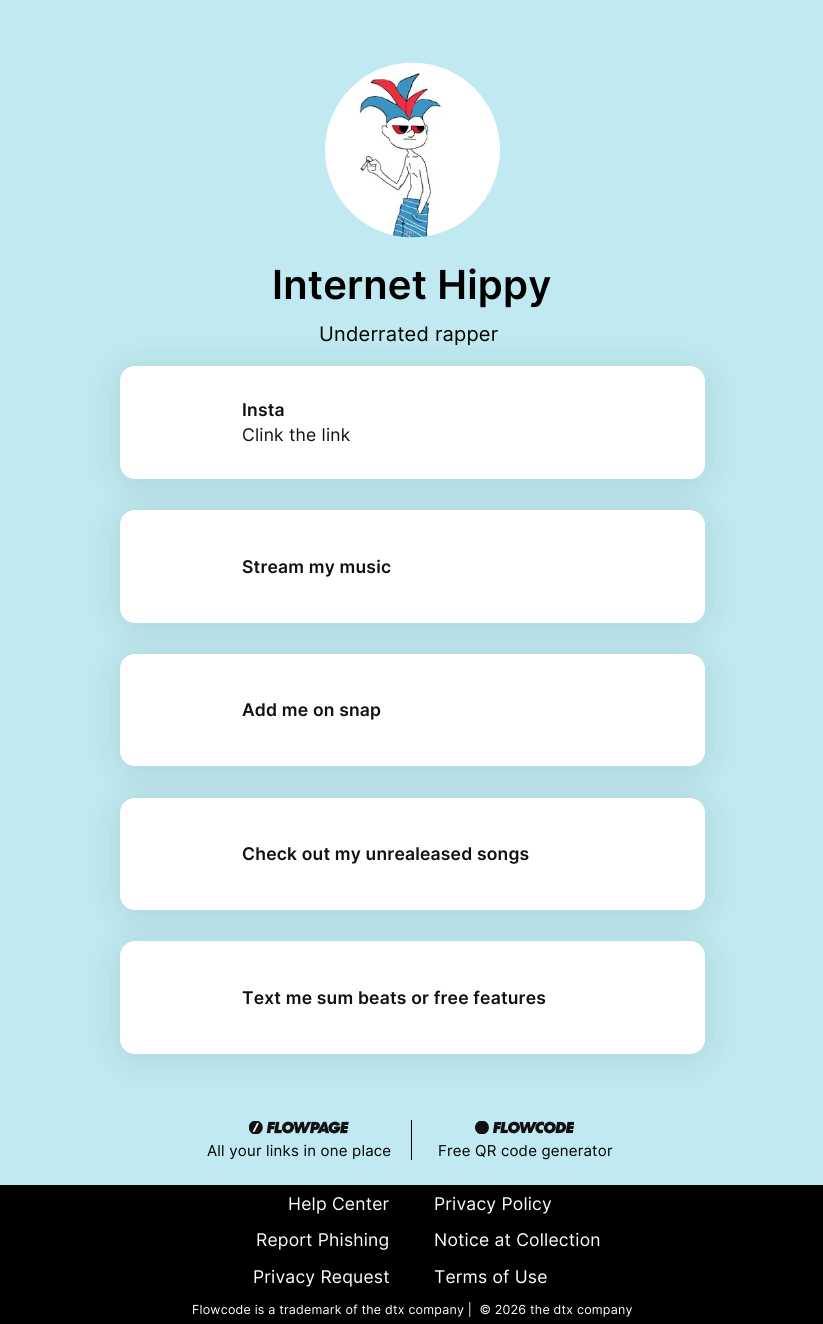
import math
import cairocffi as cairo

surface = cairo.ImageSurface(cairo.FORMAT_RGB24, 823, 1324)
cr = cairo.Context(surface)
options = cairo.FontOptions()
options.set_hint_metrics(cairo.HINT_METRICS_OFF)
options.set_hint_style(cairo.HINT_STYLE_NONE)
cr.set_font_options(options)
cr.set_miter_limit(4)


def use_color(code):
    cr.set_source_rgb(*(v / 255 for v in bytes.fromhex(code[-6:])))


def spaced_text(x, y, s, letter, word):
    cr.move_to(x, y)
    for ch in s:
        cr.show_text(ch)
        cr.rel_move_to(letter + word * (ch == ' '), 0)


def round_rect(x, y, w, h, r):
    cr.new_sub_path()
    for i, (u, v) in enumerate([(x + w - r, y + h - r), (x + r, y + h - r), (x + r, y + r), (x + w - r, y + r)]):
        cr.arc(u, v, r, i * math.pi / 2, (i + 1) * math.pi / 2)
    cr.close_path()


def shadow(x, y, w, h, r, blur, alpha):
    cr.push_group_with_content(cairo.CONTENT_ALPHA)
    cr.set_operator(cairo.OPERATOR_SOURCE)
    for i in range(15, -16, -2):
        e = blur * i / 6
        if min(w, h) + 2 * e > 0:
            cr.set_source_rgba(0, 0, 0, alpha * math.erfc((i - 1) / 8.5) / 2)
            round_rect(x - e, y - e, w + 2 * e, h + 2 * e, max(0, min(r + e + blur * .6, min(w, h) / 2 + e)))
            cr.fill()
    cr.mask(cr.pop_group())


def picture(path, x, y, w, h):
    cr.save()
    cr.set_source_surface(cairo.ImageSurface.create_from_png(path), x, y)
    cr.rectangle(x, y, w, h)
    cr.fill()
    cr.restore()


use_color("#c0e9f1")
cr.paint()
picture("img1.png", 325, 62, 175, 176)
cr.select_font_face("Inter SemiBold")
cr.set_font_size(40)
use_color("#000000")
spaced_text(272, 299, "Internet Hippy", 0.2, 0)
cr.select_font_face("Inter")
cr.set_font_size(20)
spaced_text(319, 341, "Underrated rapper", 0.2, 0)
use_color("#000000")
shadow(120, 370, 585, 113, 15, 19, 0.1)
use_color("#ffffff")
round_rect(120, 366, 585, 113, 15)
cr.fill()
cr.select_font_face("Inter SemiBold")
cr.set_font_size(17.5)
use_color("#111111")
spaced_text(242, 416, "Insta", 0.2, 0)
cr.select_font_face("Inter")
spaced_text(242, 441, "Clink the link", 0.2, 0)
use_color("#000000")
shadow(120, 514, 585, 112, 15, 19, 0.1)
use_color("#ffffff")
round_rect(120, 510, 585, 113, 15)
cr.fill()
cr.select_font_face("Inter SemiBold")
use_color("#111111")
spaced_text(242, 573, "Stream my music", 0.2, 0)
use_color("#000000")
shadow(120, 658, 585, 112, 15, 19, 0.1)
use_color("#ffffff")
round_rect(120, 654, 585, 112, 15)
cr.fill()
use_color("#111111")
spaced_text(242, 716, "Add me on snap", 0.2, 0)
use_color("#000000")
shadow(120, 801, 585, 113, 15, 19, 0.1)
use_color("#ffffff")
round_rect(120, 798, 585, 112, 15)
cr.fill()
use_color("#111111")
spaced_text(242, 860, "Check out my unrealeased songs", 0.2, 0)
use_color("#000000")
shadow(120, 945, 585, 113, 15, 19, 0.1)
use_color("#ffffff")
round_rect(120, 941, 585, 113, 15)
cr.fill()
use_color("#111111")
spaced_text(242, 1004, "Text me sum beats or free features", 0.2, 0)
picture("img2.png", 249, 1121, 100, 13)
cr.select_font_face("Inter")
cr.set_font_size(15)
use_color("#000000")
spaced_text(207, 1156, "All your links in one place", 0.2, 0)
cr.rectangle(411, 1120, 1, 40)
cr.fill()
picture("img3.png", 475, 1121, 99, 13)
spaced_text(438, 1156, "Free QR code generator", 0.2, 0)
cr.rectangle(0, 1185, 823, 139)
cr.fill()
cr.set_font_size(17.5)
use_color("#ffffff")
spaced_text(288, 1210, "Help Center", 0.2, 0)
spaced_text(256, 1246, "Report Phishing", 0.2, 0)
spaced_text(253, 1283, "Privacy Request", 0.2, 0)
spaced_text(434, 1210, "Privacy Policy", 0.2, 0)
spaced_text(434, 1246, "Notice at Collection", 0.2, 0)
spaced_text(434, 1283, "Terms of Use", 0.2, 0)
cr.set_font_size(12.5)
spaced_text(192, 1314, "Flowcode is a trademark of the dtx company |  © 2026 the dtx company", 0.2, 0)
surface.write_to_png("result.png")
